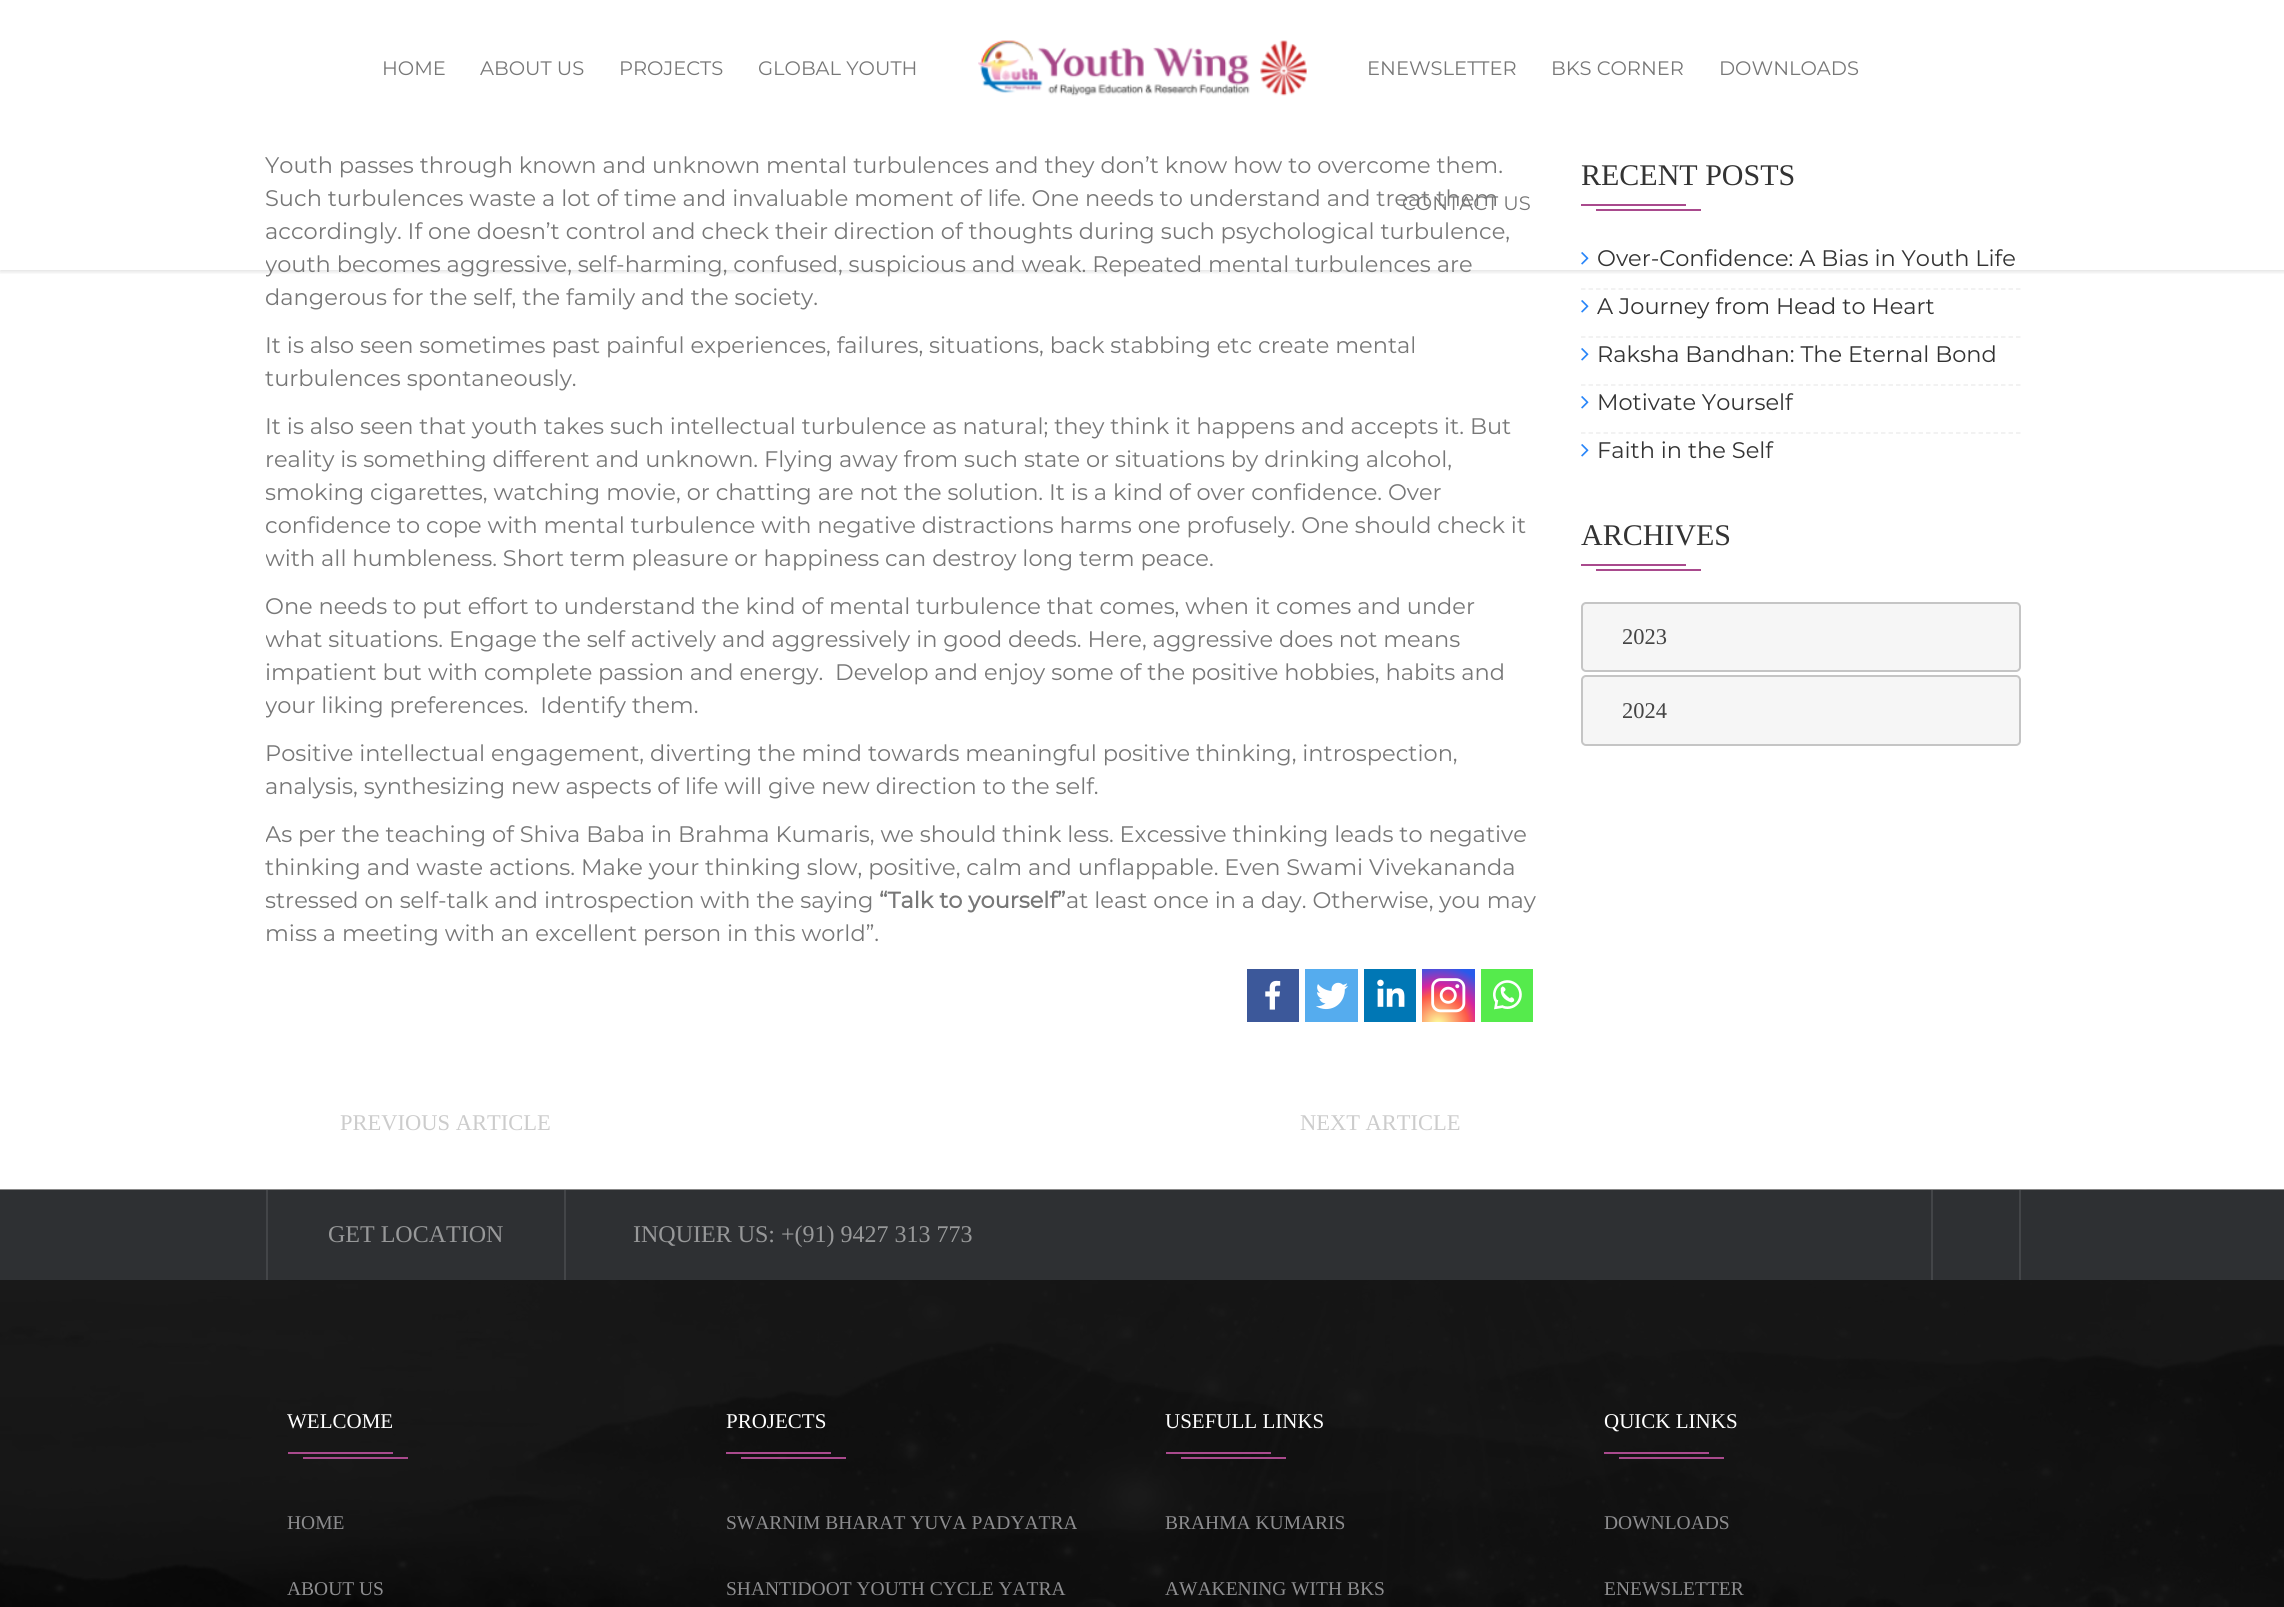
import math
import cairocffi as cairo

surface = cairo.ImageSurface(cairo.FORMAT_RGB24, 2284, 1607)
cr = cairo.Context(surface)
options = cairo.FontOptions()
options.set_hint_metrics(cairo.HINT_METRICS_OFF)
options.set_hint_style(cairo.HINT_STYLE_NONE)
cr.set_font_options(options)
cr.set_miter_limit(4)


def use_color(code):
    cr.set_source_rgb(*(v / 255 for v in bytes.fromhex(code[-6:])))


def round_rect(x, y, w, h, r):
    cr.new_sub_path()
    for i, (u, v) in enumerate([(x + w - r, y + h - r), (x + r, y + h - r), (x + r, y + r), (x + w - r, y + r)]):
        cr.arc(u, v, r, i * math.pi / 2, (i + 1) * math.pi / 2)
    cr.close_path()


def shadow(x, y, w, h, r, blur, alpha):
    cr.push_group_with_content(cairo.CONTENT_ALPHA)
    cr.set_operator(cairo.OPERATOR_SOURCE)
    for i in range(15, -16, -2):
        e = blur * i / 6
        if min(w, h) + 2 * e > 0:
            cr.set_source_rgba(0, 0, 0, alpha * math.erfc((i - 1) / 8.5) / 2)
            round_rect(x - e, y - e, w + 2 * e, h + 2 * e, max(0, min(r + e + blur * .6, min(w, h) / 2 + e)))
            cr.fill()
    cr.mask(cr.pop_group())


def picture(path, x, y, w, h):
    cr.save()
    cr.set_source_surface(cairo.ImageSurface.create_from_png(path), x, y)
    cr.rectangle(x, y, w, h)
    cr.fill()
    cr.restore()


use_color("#ffffff")
cr.paint()
use_color("#a94a8d")
cr.rectangle(1581, 204, 105, 2)
cr.fill()
cr.rectangle(1596, 209, 105, 2)
cr.fill()
picture("img7.png", 1581, 252, 8, 13)
cr.save()
cr.rectangle(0, 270, 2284, 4)
cr.clip()
use_color("#000000")
shadow(0, 2, 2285, 270, 0, 2, 0.11)
cr.restore()
cr.select_font_face("Montserrat Thin")
cr.set_font_size(19.5)
use_color("#777777")
cr.move_to(382, 75)
cr.show_text("HOME")
cr.move_to(480, 75)
cr.show_text("ABOUT US")
cr.move_to(619, 75)
cr.show_text("PROJECTS")
cr.move_to(758, 75)
cr.show_text("GLOBAL YOUTH")
picture("img1.png", 978, 40, 329, 56)
cr.move_to(1367, 75)
cr.show_text("ENEWSLETTER")
cr.move_to(1551, 75)
cr.show_text("BKS CORNER")
cr.move_to(1719, 75)
cr.show_text("DOWNLOADS")
cr.set_font_size(22.5)
cr.move_to(265, 206)
cr.show_text("Such turbulences waste a lot of time and invaluable moment of life. One needs to understand and treat them")
cr.set_font_size(19.5)
cr.move_to(1402, 210)
cr.show_text("CONTACT US")
cr.set_font_size(22.5)
cr.move_to(265, 173)
cr.show_text("Youth passes through known and unknown mental turbulences and they don’t know how to overcome them.")
cr.move_to(265, 239)
cr.show_text("accordingly. If one doesn’t control and check their direction of thoughts during such psychological turbulence,")
cr.save()
cr.rectangle(266, 0, 1270, 1062)
cr.clip()
cr.move_to(265, 272)
cr.show_text("youth becomes aggressive, self-harming, confused, suspicious and weak. Repeated mental turbulences are")
cr.restore()
cr.move_to(265, 305)
cr.show_text("dangerous for the self, the family and the society.")
cr.move_to(265, 353)
cr.show_text("It is also seen sometimes past painful experiences, failures, situations, back stabbing etc create mental")
cr.move_to(265, 386)
cr.show_text("turbulences spontaneously.")
cr.move_to(265, 434)
cr.show_text("It is also seen that youth takes such intellectual turbulence as natural; they think it happens and accepts it. But")
cr.move_to(265, 467)
cr.show_text("reality is something different and unknown. Flying away from such state or situations by drinking alcohol,")
cr.save()
cr.rectangle(266, 0, 1270, 1062)
cr.clip()
cr.move_to(265, 500)
cr.show_text("smoking cigarettes, watching movie, or chatting are not the solution. It is a kind of over confidence. Over")
cr.restore()
cr.move_to(265, 533)
cr.show_text("confidence to cope with mental turbulence with negative distractions harms one profusely. One should check it")
cr.save()
cr.rectangle(266, 0, 1270, 1062)
cr.clip()
cr.move_to(265, 566)
cr.show_text("with all humbleness. Short term pleasure or happiness can destroy long term peace.")
cr.restore()
cr.move_to(265, 614)
cr.show_text("One needs to put effort to understand the kind of mental turbulence that comes, when it comes and under")
cr.save()
cr.rectangle(266, 0, 1270, 1062)
cr.clip()
cr.move_to(265, 647)
cr.show_text("what situations. Engage the self actively and aggressively in good deeds. Here, aggressive does not means")
cr.restore()
cr.move_to(265, 680)
cr.show_text("impatient but with complete passion and energy.  Develop and enjoy some of the positive hobbies, habits and")
cr.save()
cr.rectangle(266, 0, 1270, 1062)
cr.clip()
cr.move_to(265, 713)
cr.show_text("your liking preferences.  Identify them.")
cr.restore()
cr.move_to(265, 761)
cr.show_text("Positive intellectual engagement, diverting the mind towards meaningful positive thinking, introspection,")
cr.move_to(265, 794)
cr.show_text("analysis, synthesizing new aspects of life will give new direction to the self.")
cr.save()
cr.rectangle(266, 0, 1270, 1062)
cr.clip()
cr.move_to(265, 842)
cr.show_text("As per the teaching of Shiva Baba in Brahma Kumaris, we should think less. Excessive thinking leads to negative")
cr.restore()
cr.move_to(265, 875)
cr.show_text("thinking and waste actions. Make your thinking slow, positive, calm and unflappable. Even Swami Vivekananda")
cr.save()
cr.rectangle(266, 0, 1270, 1062)
cr.clip()
cr.move_to(265, 908)
cr.show_text("stressed on self-talk and introspection with the saying")
cr.restore()
cr.select_font_face("Montserrat", cairo.FONT_SLANT_NORMAL, cairo.FONT_WEIGHT_BOLD)
cr.move_to(879, 908)
cr.show_text("“Talk to yourself”")
cr.select_font_face("Montserrat Thin")
cr.move_to(1066, 908)
cr.show_text("at least once in a day. Otherwise, you may")
cr.move_to(265, 941)
cr.show_text("miss a meeting with an excellent person in this world”.")
use_color("#3c589a")
cr.rectangle(1247, 969, 52, 53)
cr.fill()
picture("img2.png", 1265, 980, 16, 30)
use_color("#55acee")
cr.rectangle(1305, 969, 53, 53)
cr.fill()
picture("img3.png", 1316, 982, 32, 28)
use_color("#0077b5")
cr.rectangle(1364, 969, 52, 53)
cr.fill()
picture("img4.png", 1377, 979, 28, 28)
gradient = cairo.RadialGradient(1438, 1025, 0, 1438, 1025, 67)
gradient.add_color_stop_rgba(0, 0.992, 0.957, 0.592, 1)
gradient.add_color_stop_rgba(0.05, 0.992, 0.957, 0.592, 1)
gradient.add_color_stop_rgba(0.45, 0.992, 0.349, 0.286, 1)
gradient.add_color_stop_rgba(0.6, 0.839, 0.141, 0.624, 1)
gradient.add_color_stop_rgba(0.9, 0.157, 0.353, 0.922, 1)
cr.set_source(gradient)
cr.rectangle(1422, 969, 53, 53)
cr.fill()
picture("img5.png", 1431, 978, 35, 35)
use_color("#55eb4c")
cr.rectangle(1481, 969, 52, 53)
cr.fill()
picture("img6.png", 1493, 980, 29, 30)
cr.select_font_face("Liberation Serif")
use_color("#cccccc")
cr.move_to(340, 1130)
cr.show_text("PREVIOUS ARTICLE")
cr.move_to(1300, 1130)
cr.show_text("NEXT ARTICLE")
cr.set_font_size(30)
use_color("#333333")
cr.move_to(1581, 185)
cr.show_text("RECENT POSTS")
cr.new_path()
cr.move_to(1581, 289)
cr.line_to(2020.5, 289)
use_color("#eeeeee")
cr.set_line_width(1.5)
cr.set_dash([4.5, 3])
cr.stroke()
cr.select_font_face("Montserrat Thin")
cr.set_font_size(22.5)
use_color("#333333")
cr.move_to(1597, 266)
cr.show_text("Over-Confidence: A Bias in Youth Life")
cr.new_path()
cr.move_to(1581, 337)
cr.line_to(2020.5, 337)
use_color("#eeeeee")
cr.stroke()
picture("img7.png", 1581, 300, 8, 13)
use_color("#333333")
cr.move_to(1597, 314)
cr.show_text("A Journey from Head to Heart")
cr.new_path()
cr.move_to(1581, 385)
cr.line_to(2020.5, 385)
use_color("#eeeeee")
cr.stroke()
picture("img7.png", 1581, 348, 8, 13)
use_color("#333333")
cr.move_to(1597, 362)
cr.show_text("Raksha Bandhan: The Eternal Bond")
cr.new_path()
cr.move_to(1581, 433)
cr.line_to(2020.5, 433)
use_color("#eeeeee")
cr.stroke()
picture("img7.png", 1581, 396, 8, 13)
use_color("#333333")
cr.move_to(1597, 410)
cr.show_text("Motivate Yourself")
picture("img7.png", 1581, 444, 8, 13)
cr.move_to(1597, 458)
cr.show_text("Faith in the Self")
cr.select_font_face("Liberation Serif")
cr.set_font_size(30)
cr.move_to(1581, 545)
cr.show_text("ARCHIVES")
use_color("#a94a8d")
cr.rectangle(1581, 564, 105, 2)
cr.fill()
cr.rectangle(1596, 569, 105, 2)
cr.fill()
use_color("#f6f6f6")
round_rect(1582, 603, 438, 68, 4)
cr.fill_preserve()
use_color("#c5c5c5")
cr.set_line_width(2)
cr.set_dash([])
cr.stroke()
cr.set_font_size(22.5)
use_color("#454545")
cr.move_to(1622, 644)
cr.show_text("2023")
use_color("#f6f6f6")
round_rect(1582, 676, 438, 69, 4)
cr.fill_preserve()
use_color("#c5c5c5")
cr.stroke()
use_color("#454545")
cr.move_to(1622, 718)
cr.show_text("2024")
picture("img8.png", 0, 1189, 2284, 418)
use_color("#2e3033")
cr.rectangle(0, 1190, 2284, 90)
cr.fill()
use_color("#434548")
cr.rectangle(564, 1190, 2, 90)
cr.fill()
cr.rectangle(266, 1190, 2, 90)
cr.fill()
cr.set_font_size(24)
use_color("#979899")
cr.move_to(328, 1242)
cr.show_text("GET LOCATION")
cr.move_to(633, 1242)
cr.show_text("INQUIER US: +(91) 9427 313 773")
use_color("#434548")
cr.rectangle(2019, 1190, 2, 90)
cr.fill()
cr.rectangle(1931, 1190, 2, 90)
cr.fill()
cr.set_font_size(21)
use_color("#ffffff")
cr.move_to(287, 1428)
cr.show_text("WELCOME")
use_color("#a94a8d")
cr.rectangle(288, 1452, 105, 2)
cr.fill()
cr.rectangle(303, 1457, 105, 2)
cr.fill()
cr.set_font_size(19.5)
use_color("#8d8d8f")
cr.move_to(287, 1529)
cr.show_text("HOME")
cr.move_to(287, 1595)
cr.show_text("ABOUT US")
cr.set_font_size(21)
use_color("#ffffff")
cr.move_to(726, 1428)
cr.show_text("PROJECTS")
use_color("#a94a8d")
cr.rectangle(726, 1452, 105, 2)
cr.fill()
cr.rectangle(741, 1457, 105, 2)
cr.fill()
cr.set_font_size(19.5)
use_color("#8d8d8f")
cr.move_to(726, 1529)
cr.show_text("SWARNIM BHARAT YUVA PADYATRA")
cr.move_to(726, 1595)
cr.show_text("SHANTIDOOT YOUTH CYCLE YATRA")
cr.set_font_size(21)
use_color("#ffffff")
cr.move_to(1165, 1428)
cr.show_text("USEFULL LINKS")
use_color("#a94a8d")
cr.rectangle(1166, 1452, 105, 2)
cr.fill()
cr.rectangle(1181, 1457, 105, 2)
cr.fill()
cr.set_font_size(19.5)
use_color("#8d8d8f")
cr.move_to(1165, 1529)
cr.show_text("BRAHMA KUMARIS")
cr.move_to(1165, 1595)
cr.show_text("AWAKENING WITH BKS")
cr.set_font_size(21)
use_color("#ffffff")
cr.move_to(1604, 1428)
cr.show_text("QUICK LINKS")
use_color("#a94a8d")
cr.rectangle(1604, 1452, 105, 2)
cr.fill()
cr.rectangle(1619, 1457, 105, 2)
cr.fill()
cr.set_font_size(19.5)
use_color("#8d8d8f")
cr.move_to(1604, 1529)
cr.show_text("DOWNLOADS")
cr.move_to(1604, 1595)
cr.show_text("ENEWSLETTER")
surface.write_to_png("result.png")
